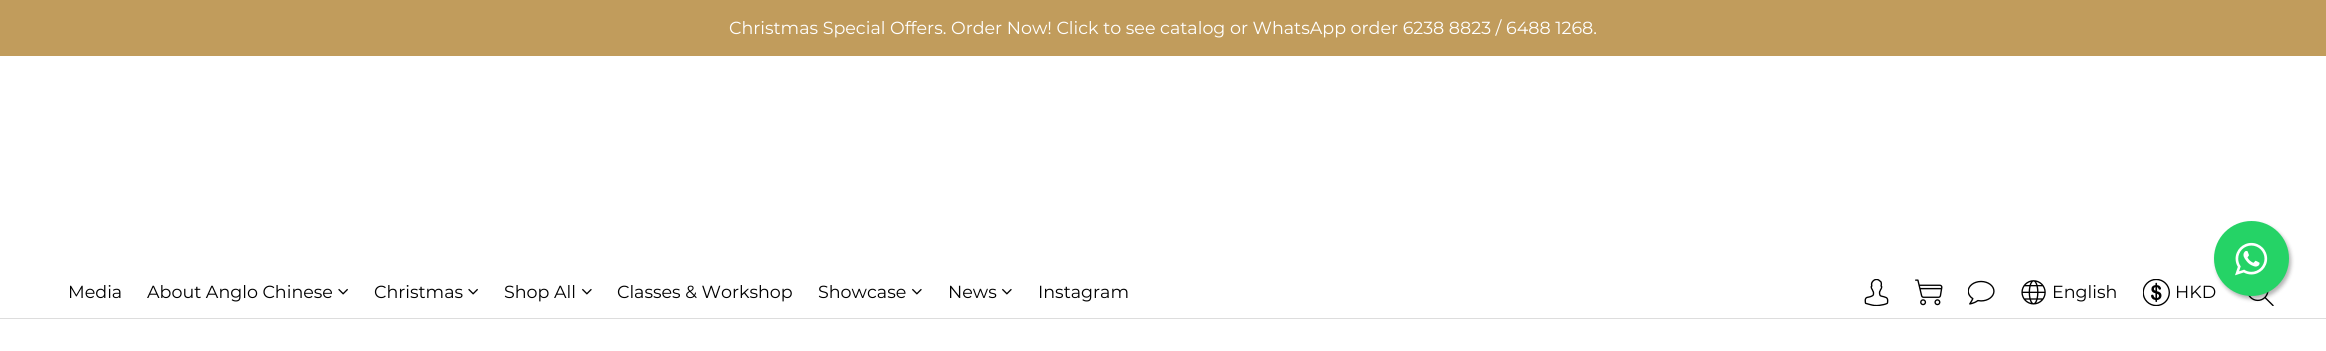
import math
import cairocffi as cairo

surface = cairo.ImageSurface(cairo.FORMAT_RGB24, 2326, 351)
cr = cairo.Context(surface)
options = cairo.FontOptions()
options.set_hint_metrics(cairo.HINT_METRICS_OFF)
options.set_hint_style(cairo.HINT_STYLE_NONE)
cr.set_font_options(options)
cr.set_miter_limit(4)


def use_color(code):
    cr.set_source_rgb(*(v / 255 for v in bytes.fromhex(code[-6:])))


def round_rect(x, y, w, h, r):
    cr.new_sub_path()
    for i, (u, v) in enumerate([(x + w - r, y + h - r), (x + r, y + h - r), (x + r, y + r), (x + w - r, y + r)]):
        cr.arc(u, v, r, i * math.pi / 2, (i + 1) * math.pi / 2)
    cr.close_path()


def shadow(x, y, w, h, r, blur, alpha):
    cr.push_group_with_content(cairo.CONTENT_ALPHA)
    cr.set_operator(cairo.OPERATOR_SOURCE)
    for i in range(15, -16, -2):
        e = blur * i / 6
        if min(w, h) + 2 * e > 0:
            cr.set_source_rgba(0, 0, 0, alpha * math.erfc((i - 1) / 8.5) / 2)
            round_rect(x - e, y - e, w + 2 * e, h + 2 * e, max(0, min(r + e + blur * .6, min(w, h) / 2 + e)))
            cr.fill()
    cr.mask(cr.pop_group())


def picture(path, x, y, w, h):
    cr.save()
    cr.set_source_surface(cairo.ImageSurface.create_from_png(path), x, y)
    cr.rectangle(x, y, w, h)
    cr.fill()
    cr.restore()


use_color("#ffffff")
cr.paint()
use_color("#c19c5c")
cr.rectangle(0, 0, 2326, 56)
cr.fill()
cr.select_font_face("Montserrat")
cr.set_font_size(17.5)
use_color("#ffffff")
cr.move_to(729, 34)
cr.show_text("Christmas Special Offers. Order Now! Click to see catalog or WhatsApp order 6238 8823 / 6488 1268.")
use_color("#000000")
cr.move_to(68, 298)
cr.show_text("Media")
cr.move_to(147, 298)
cr.show_text("About Anglo Chinese")
picture("img1.png", 338, 288, 10, 7)
cr.move_to(374, 298)
cr.show_text("Christmas")
picture("img1.png", 468, 288, 10, 7)
cr.move_to(504, 298)
cr.show_text("Shop All")
picture("img2.png", 582, 288, 10, 7)
cr.move_to(617, 298)
cr.show_text("Classes & Workshop")
cr.move_to(818, 298)
cr.show_text("Showcase")
picture("img2.png", 912, 288, 10, 7)
cr.move_to(948, 298)
cr.show_text("News")
picture("img2.png", 1002, 288, 10, 7)
cr.move_to(1038, 298)
cr.show_text("Instagram")
picture("img3.png", 1864, 279, 25, 27)
picture("img4.png", 1915, 279, 28, 27)
picture("img5.png", 1968, 280, 27, 25)
picture("img6.png", 2021, 280, 25, 25)
cr.move_to(2052, 298)
cr.show_text("English")
picture("img7.png", 2143, 279, 27, 27)
cr.move_to(2175, 298)
cr.show_text("HKD")
picture("img8.png", 2248, 291, 26, 15)
use_color("#000000")
shadow(2216, 224, 75, 75, 37.5, 2, 0.3)
use_color("#25d366")
cr.arc(2251.5, 258.5, 37.5, 0, 2 * math.pi)
cr.fill()
picture("img9.png", 2235, 242, 33, 34)
use_color("#dddddd")
cr.rectangle(0, 318, 2326, 1)
cr.fill()
surface.write_to_png("result.png")
